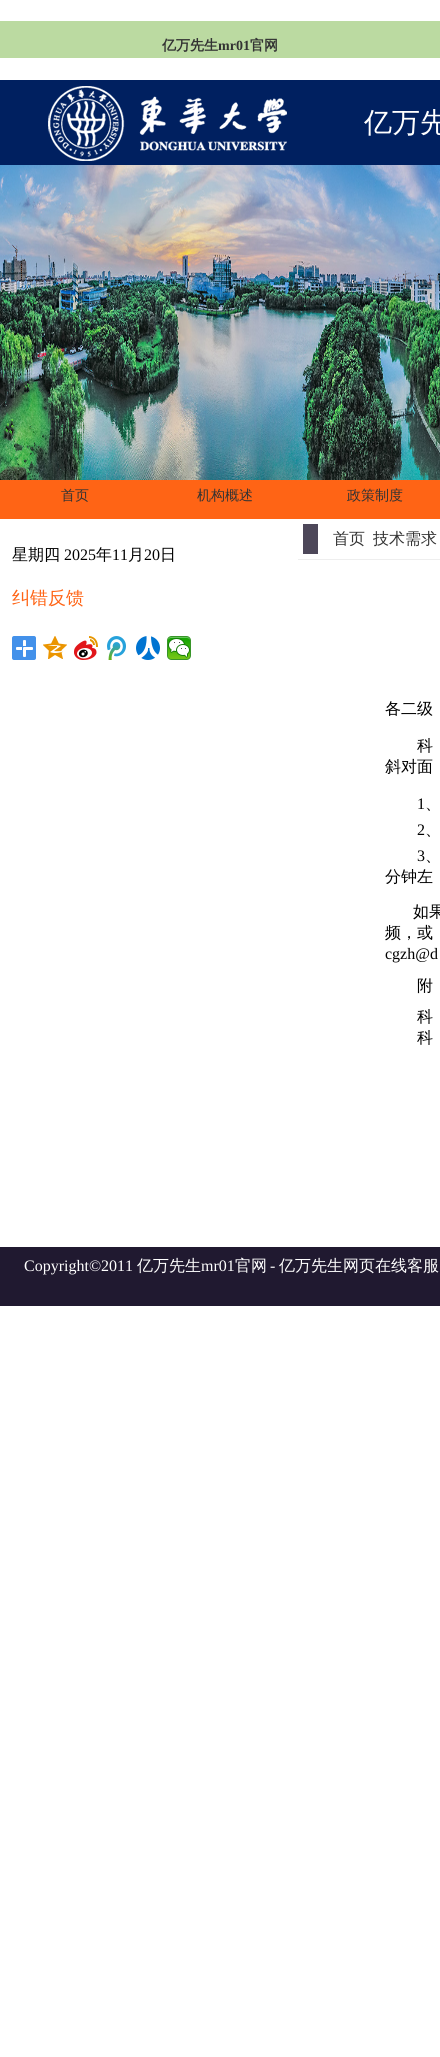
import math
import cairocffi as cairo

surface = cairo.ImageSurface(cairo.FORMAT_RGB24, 440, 2057)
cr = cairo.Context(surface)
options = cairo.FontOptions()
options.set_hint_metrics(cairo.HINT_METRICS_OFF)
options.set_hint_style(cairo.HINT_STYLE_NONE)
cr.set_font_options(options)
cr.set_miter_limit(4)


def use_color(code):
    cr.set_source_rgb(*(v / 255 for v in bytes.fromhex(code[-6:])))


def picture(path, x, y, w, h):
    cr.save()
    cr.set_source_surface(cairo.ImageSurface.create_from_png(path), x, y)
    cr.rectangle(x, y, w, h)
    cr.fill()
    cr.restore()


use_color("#ffffff")
cr.paint()
use_color("#bbdaa1")
cr.rectangle(0, 21, 440, 37)
cr.fill()
cr.select_font_face("WenQuanYi Zen Hei", cairo.FONT_SLANT_NORMAL, cairo.FONT_WEIGHT_BOLD)
cr.set_font_size(14)
use_color("#333333")
cr.move_to(162, 50)
cr.show_text("亿万先生")
cr.select_font_face("Liberation Serif", cairo.FONT_SLANT_NORMAL, cairo.FONT_WEIGHT_BOLD)
cr.move_to(218, 50)
cr.show_text("mr01")
cr.select_font_face("WenQuanYi Zen Hei", cairo.FONT_SLANT_NORMAL, cairo.FONT_WEIGHT_BOLD)
cr.move_to(250, 50)
cr.show_text("官网")
use_color("#002060")
cr.rectangle(0, 80, 440, 85)
cr.fill()
picture("img1.png", 48, 86, 239, 75)
cr.select_font_face("WenQuanYi Zen Hei Medium")
cr.set_font_size(28)
use_color("#ffffff")
cr.move_to(364, 132)
cr.show_text("亿万先")
picture("img2.png", 0, 165, 440, 315)
use_color("#ff6415")
cr.rectangle(0, 480, 440, 39)
cr.fill()
cr.set_font_size(14)
use_color("#333333")
cr.move_to(61, 500)
cr.show_text("首页")
cr.move_to(197, 500)
cr.show_text("机构概述")
cr.move_to(347, 500)
cr.show_text("政策制度")
cr.set_font_size(16)
use_color("#000000")
cr.move_to(12, 560)
cr.show_text("星期四")
cr.select_font_face("Liberation Serif")
cr.move_to(64, 560)
cr.show_text("2025")
cr.select_font_face("WenQuanYi Zen Hei Medium")
cr.move_to(96, 560)
cr.show_text("年")
cr.select_font_face("Liberation Serif")
cr.move_to(112, 560)
cr.show_text("11")
cr.select_font_face("WenQuanYi Zen Hei Medium")
cr.move_to(128, 560)
cr.show_text("月")
cr.select_font_face("Liberation Serif")
cr.move_to(144, 560)
cr.show_text("20")
cr.select_font_face("WenQuanYi Zen Hei Medium")
cr.move_to(160, 560)
cr.show_text("日")
cr.set_font_size(18)
use_color("#ff6415")
cr.move_to(12, 604)
cr.show_text("纠错反馈")
picture("img3.png", 12, 636, 24, 24)
picture("img4.png", 43, 636, 24, 23)
picture("img5.png", 74, 636, 24, 24)
picture("img6.png", 107, 636, 19, 24)
picture("img7.png", 136, 636, 24, 24)
picture("img8.png", 167, 636, 24, 24)
use_color("#eeeeee")
cr.rectangle(298, 559, 142, 1)
cr.fill()
use_color("#4d4759")
cr.rectangle(303, 524, 15, 30)
cr.fill()
cr.set_font_size(16)
use_color("#333333")
cr.move_to(333, 544)
cr.show_text("首页")
cr.move_to(373, 544)
cr.show_text("技术需求")
use_color("#000000")
cr.move_to(385, 714)
cr.show_text("各二级")
cr.move_to(417, 751)
cr.show_text("科")
cr.move_to(385, 772)
cr.show_text("斜对面")
cr.select_font_face("Liberation Serif")
cr.move_to(417, 809)
cr.show_text("1")
cr.select_font_face("WenQuanYi Zen Hei Medium")
cr.move_to(425, 809)
cr.show_text("、")
cr.select_font_face("Liberation Serif")
cr.move_to(417, 835)
cr.show_text("2")
cr.select_font_face("WenQuanYi Zen Hei Medium")
cr.move_to(425, 835)
cr.show_text("、")
cr.select_font_face("Liberation Serif")
cr.move_to(417, 861)
cr.show_text("3")
cr.select_font_face("WenQuanYi Zen Hei Medium")
cr.move_to(425, 861)
cr.show_text("、")
cr.move_to(385, 882)
cr.show_text("分钟左")
cr.move_to(413, 917)
cr.show_text("如果")
cr.move_to(385, 938)
cr.show_text("频，或")
cr.select_font_face("Liberation Serif")
cr.move_to(385, 959)
cr.show_text("cgzh@d")
cr.select_font_face("WenQuanYi Zen Hei Medium")
cr.move_to(417, 991)
cr.show_text("附")
cr.move_to(417, 1022)
cr.show_text("科")
cr.move_to(417, 1043)
cr.show_text("科")
use_color("#201930")
cr.rectangle(0, 1247, 440, 59)
cr.fill()
cr.select_font_face("Liberation Serif")
use_color("#ffffff")
cr.move_to(24, 1271)
cr.show_text("Copyright©2011")
cr.select_font_face("WenQuanYi Zen Hei Medium")
cr.move_to(137, 1271)
cr.show_text("亿万先生")
cr.select_font_face("Liberation Serif")
cr.move_to(201, 1271)
cr.show_text("mr01")
cr.select_font_face("WenQuanYi Zen Hei Medium")
cr.move_to(235, 1271)
cr.show_text("官网")
cr.select_font_face("Liberation Serif")
cr.move_to(270, 1271)
cr.show_text("-")
cr.select_font_face("WenQuanYi Zen Hei Medium")
cr.move_to(279, 1271)
cr.show_text("亿万先生网页在线客服")
surface.write_to_png("result.png")
